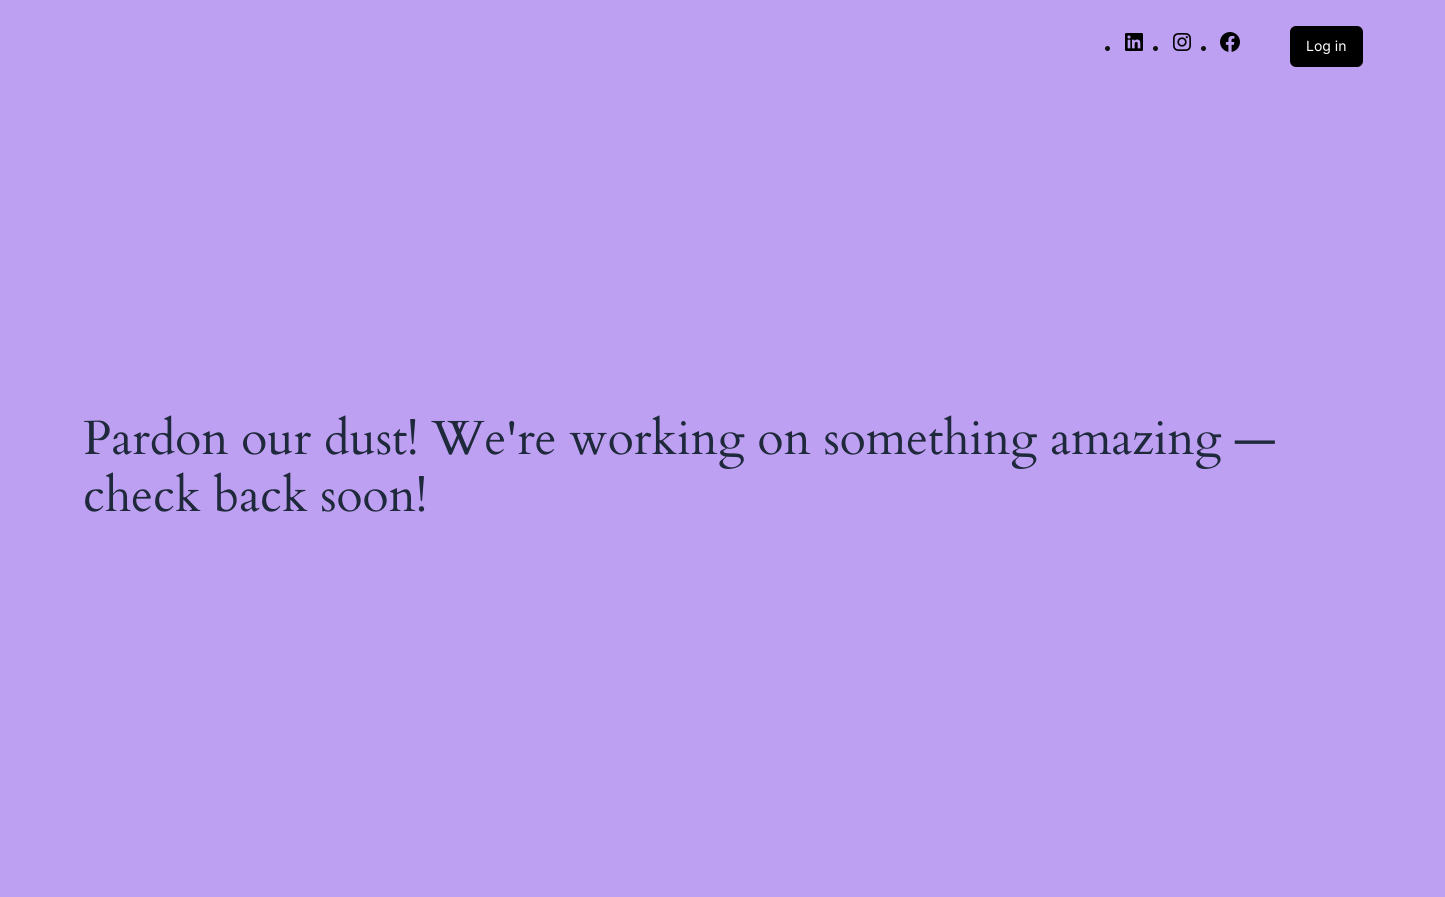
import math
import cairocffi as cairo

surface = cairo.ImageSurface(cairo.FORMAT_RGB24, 1445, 897)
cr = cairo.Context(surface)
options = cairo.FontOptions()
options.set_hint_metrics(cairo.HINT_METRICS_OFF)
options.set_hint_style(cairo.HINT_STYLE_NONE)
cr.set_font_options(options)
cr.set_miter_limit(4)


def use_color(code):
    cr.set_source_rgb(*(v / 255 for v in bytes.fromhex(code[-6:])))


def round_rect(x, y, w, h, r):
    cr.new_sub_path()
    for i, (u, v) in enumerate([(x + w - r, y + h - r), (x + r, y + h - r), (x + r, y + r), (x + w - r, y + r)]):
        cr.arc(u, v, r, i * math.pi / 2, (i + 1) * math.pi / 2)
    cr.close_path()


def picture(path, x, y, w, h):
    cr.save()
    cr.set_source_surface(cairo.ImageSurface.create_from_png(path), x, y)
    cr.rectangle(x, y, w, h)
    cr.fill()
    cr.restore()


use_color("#bea0f2")
cr.paint()
use_color("#111111")
cr.arc(1107.5, 48.5, 2.5, 0, 2 * math.pi)
cr.fill()
picture("img1.png", 1125, 33, 18, 18)
cr.arc(1155.5, 48.5, 2.5, 0, 2 * math.pi)
cr.fill()
picture("img2.png", 1173, 33, 18, 18)
cr.arc(1203.5, 48.5, 2.5, 0, 2 * math.pi)
cr.fill()
picture("img3.png", 1220, 32, 20, 20)
use_color("#000000")
round_rect(1290, 26, 73, 41, 6)
cr.fill()
cr.select_font_face("Inter")
cr.set_font_size(14)
use_color("#ffffff")
cr.move_to(1306, 51)
cr.show_text("Log in")
cr.select_font_face("Cardo")
cr.set_font_size(48)
use_color("#1e293b")
cr.move_to(83, 454)
cr.show_text("Pardon our dust! We're working on something amazing —")
cr.move_to(83, 511)
cr.show_text("check back soon!")
surface.write_to_png("result.png")
